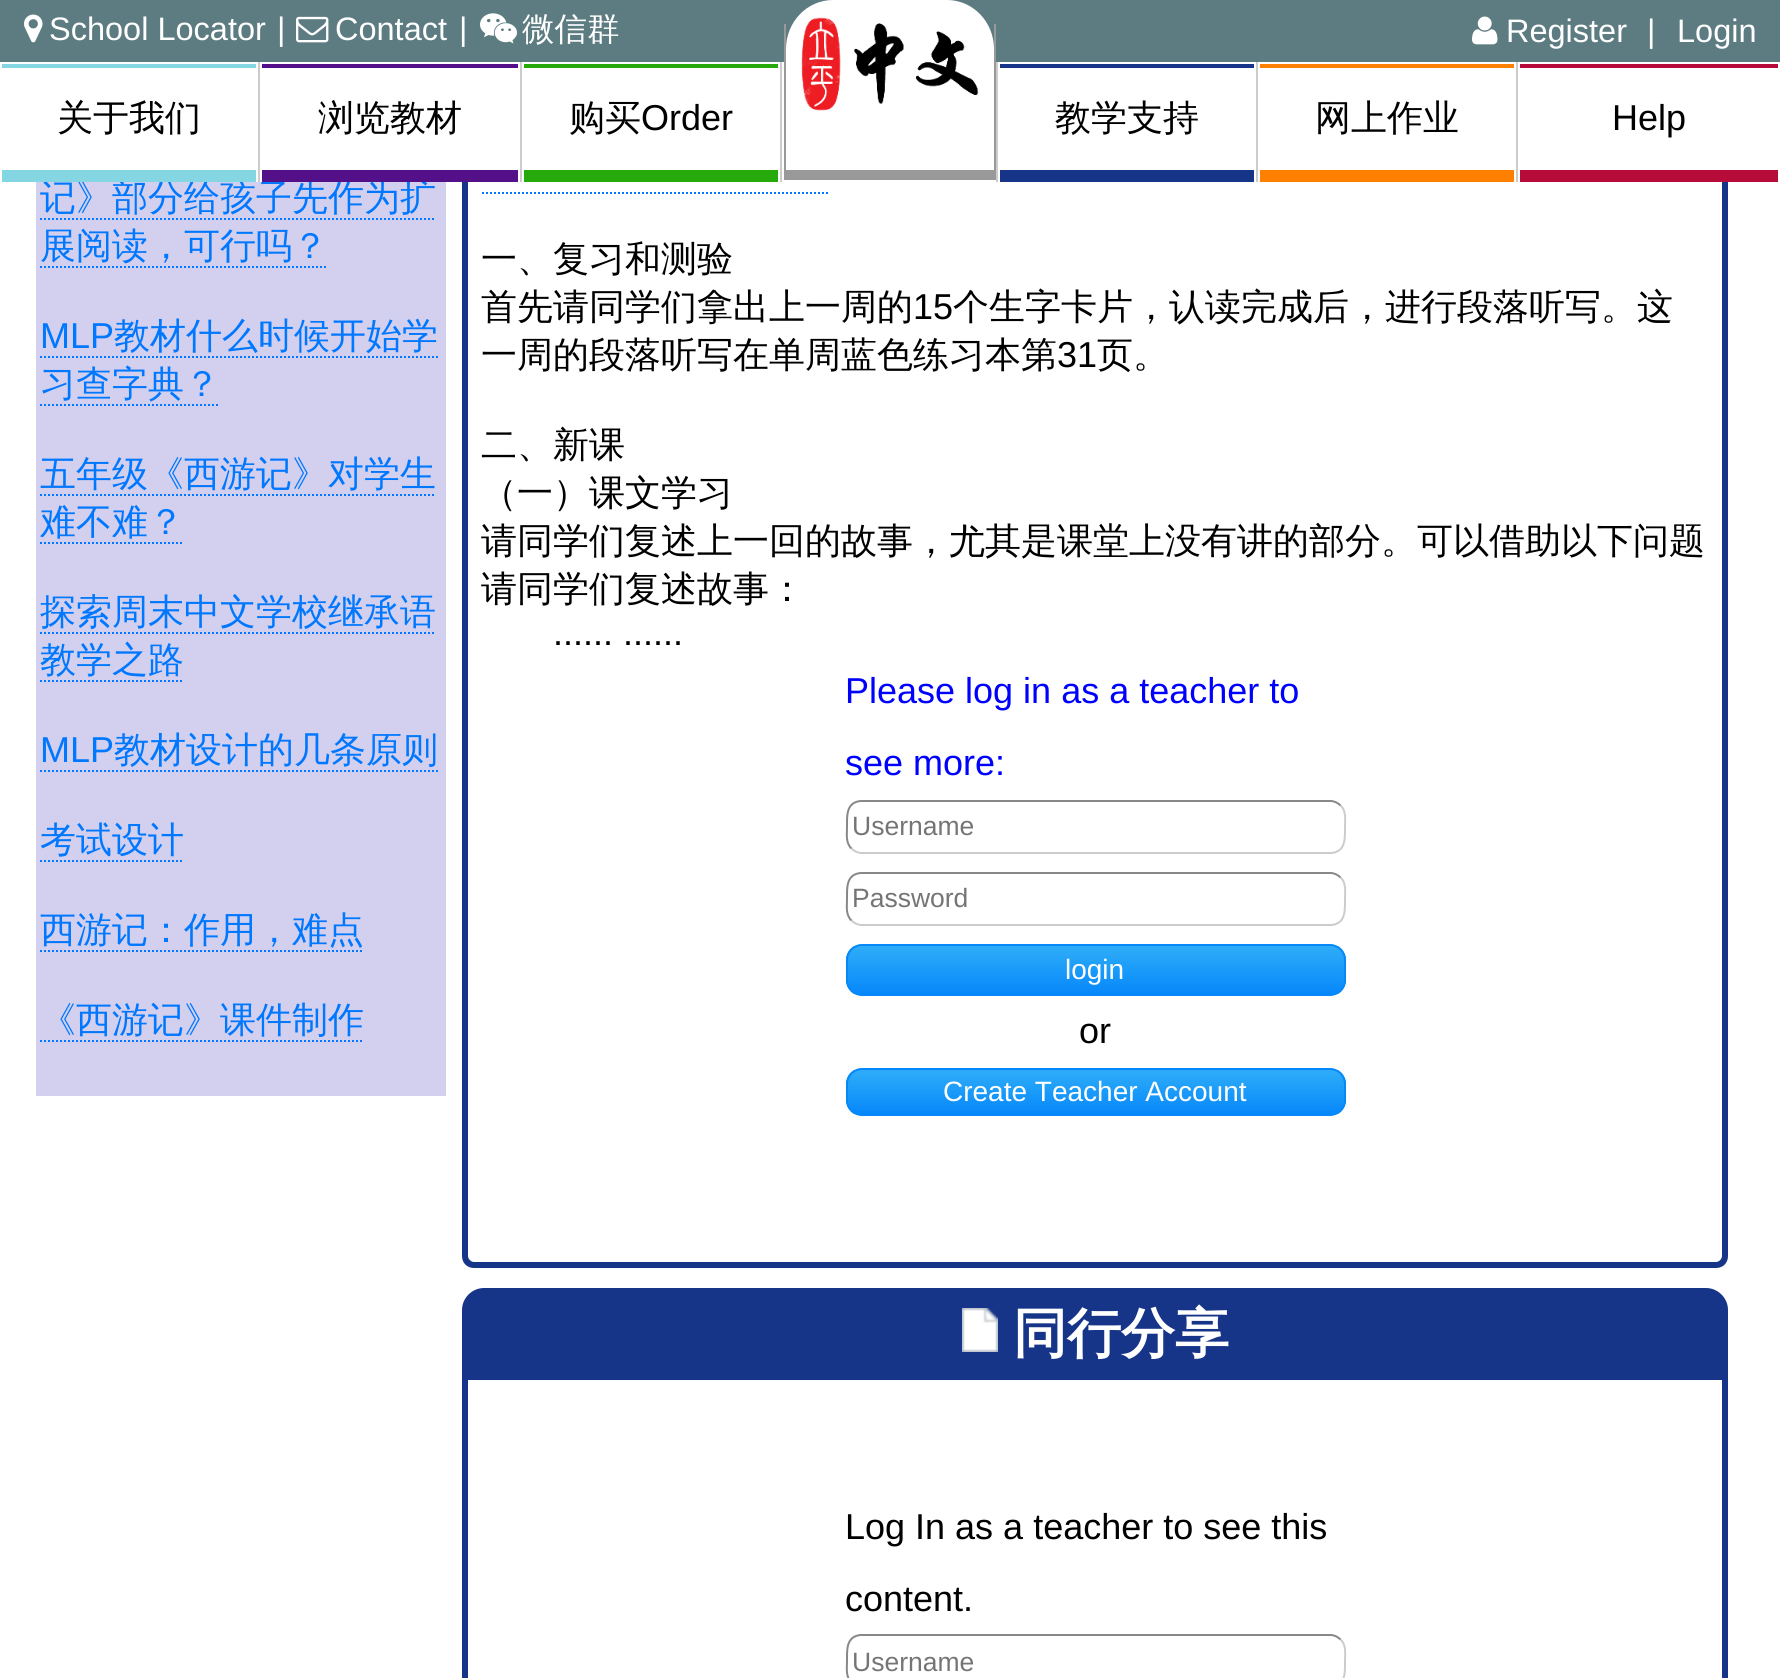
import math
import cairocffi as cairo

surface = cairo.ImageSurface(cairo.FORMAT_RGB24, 1780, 1678)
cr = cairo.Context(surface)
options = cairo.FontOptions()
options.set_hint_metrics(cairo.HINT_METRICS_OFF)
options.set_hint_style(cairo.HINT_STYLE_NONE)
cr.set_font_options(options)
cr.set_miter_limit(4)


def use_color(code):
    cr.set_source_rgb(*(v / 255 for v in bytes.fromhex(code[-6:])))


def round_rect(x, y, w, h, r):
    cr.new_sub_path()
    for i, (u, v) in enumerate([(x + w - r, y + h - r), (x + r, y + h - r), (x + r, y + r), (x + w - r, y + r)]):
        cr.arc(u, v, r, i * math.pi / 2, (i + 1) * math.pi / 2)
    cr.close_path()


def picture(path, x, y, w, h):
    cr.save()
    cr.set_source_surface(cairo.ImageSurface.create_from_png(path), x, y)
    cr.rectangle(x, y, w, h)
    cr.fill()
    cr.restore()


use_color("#ffffff")
cr.paint()
use_color("#163588")
cr.set_fill_rule(cairo.FILL_RULE_EVEN_ODD)
cr.new_path()
cr.move_to(462, -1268)
cr.line_to(1728, -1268)
cr.line_to(1728, 1256)
cr.curve_to(1728, 1263, 1723, 1268, 1716, 1268)
cr.line_to(474, 1268)
cr.curve_to(467, 1268, 462, 1263, 462, 1256)
cr.close_path()
cr.move_to(468, -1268)
cr.line_to(1722, -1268)
cr.line_to(1722, 1256)
cr.curve_to(1722, 1259, 1719, 1262, 1716, 1262)
cr.line_to(474, 1262)
cr.curve_to(471, 1262, 468, 1259, 468, 1256)
cr.close_path()
cr.fill()
use_color("#5d7c81")
cr.rectangle(0, 0, 1780, 62)
cr.fill()
use_color("#ffffff")
cr.set_fill_rule(cairo.FILL_RULE_WINDING)
cr.new_path()
cr.move_to(833, 0)
cr.line_to(947, 0)
cr.curve_to(973, 0, 994, 22, 994, 49)
cr.line_to(994, 170)
cr.line_to(786, 170)
cr.line_to(786, 49)
cr.curve_to(786, 22, 807, 0, 833, 0)
cr.close_path()
cr.fill()
use_color("#999999")
cr.rectangle(994, 24, 2, 146)
cr.fill()
cr.rectangle(786, 170, 210, 10)
cr.fill()
cr.rectangle(784, 24, 2, 156)
cr.fill()
picture("img1.png", 801, 17, 178, 94)
picture("img2.png", 24, 14, 19, 29)
cr.select_font_face("Liberation Sans")
cr.set_font_size(32.5)
use_color("#ffffff")
cr.move_to(49, 40)
cr.show_text("School Locator")
cr.move_to(277, 40)
cr.show_text("|")
picture("img3.png", 296, 16, 33, 27)
cr.move_to(335, 40)
cr.show_text("Contact")
cr.move_to(459, 40)
cr.show_text("|")
picture("img4.png", 480, 13, 37, 31)
cr.select_font_face("WenQuanYi Zen Hei Medium")
cr.move_to(522, 40)
cr.show_text("微信群")
picture("img5.png", 1472, 16, 26, 29)
cr.select_font_face("Liberation Sans")
cr.move_to(1506, 42)
cr.show_text("Register")
cr.move_to(1647, 42)
cr.show_text("|")
cr.move_to(1677, 42)
cr.show_text("Login")
use_color("#d2d0ee")
cr.rectangle(36, 182, 410, 914)
cr.fill()
cr.select_font_face("WenQuanYi Zen Hei Medium")
cr.set_font_size(36)
use_color("#0077ff")
cr.move_to(40, 210)
cr.show_text("记》部分给孩子先作为扩")
use_color("#ffffff")
cr.rectangle(43, 179, 200, 3)
cr.fill()
use_color("#cccccc")
cr.rectangle(258, 62, 2, 120)
cr.fill()
use_color("#84d6e3")
cr.rectangle(2, 64, 254, 4)
cr.fill()
cr.rectangle(2, 170, 254, 12)
cr.fill()
use_color("#000000")
cr.move_to(57, 130)
cr.show_text("关于我们")
use_color("#ffffff")
cr.rectangle(260, 62, 208, 120)
cr.fill()
use_color("#cccccc")
cr.rectangle(520, 62, 2, 120)
cr.fill()
use_color("#541088")
cr.rectangle(262, 64, 256, 4)
cr.fill()
cr.rectangle(262, 170, 256, 12)
cr.fill()
use_color("#000000")
cr.move_to(318, 130)
cr.show_text("浏览教材")
use_color("#cccccc")
cr.rectangle(780, 62, 2, 120)
cr.fill()
use_color("#26a90a")
cr.rectangle(524, 64, 254, 4)
cr.fill()
cr.rectangle(524, 170, 254, 12)
cr.fill()
use_color("#000000")
cr.move_to(569, 130)
cr.show_text("购买")
cr.select_font_face("Liberation Sans")
cr.move_to(641, 130)
cr.show_text("Order")
use_color("#cccccc")
cr.rectangle(1256, 62, 2, 120)
cr.fill()
cr.rectangle(996, 62, 2, 120)
cr.fill()
use_color("#163588")
cr.rectangle(1000, 64, 254, 4)
cr.fill()
cr.rectangle(1000, 170, 254, 12)
cr.fill()
cr.select_font_face("WenQuanYi Zen Hei Medium")
use_color("#000000")
cr.move_to(1055, 130)
cr.show_text("教学支持")
use_color("#cccccc")
cr.rectangle(1516, 62, 2, 120)
cr.fill()
use_color("#ff8000")
cr.rectangle(1260, 64, 254, 4)
cr.fill()
cr.rectangle(1260, 170, 254, 12)
cr.fill()
use_color("#000000")
cr.move_to(1315, 130)
cr.show_text("网上作业")
use_color("#ffffff")
cr.rectangle(1722, 62, 6, 120)
cr.fill()
use_color("#b70b39")
cr.rectangle(1520, 64, 258, 4)
cr.fill()
cr.rectangle(1520, 170, 258, 12)
cr.fill()
cr.select_font_face("Liberation Sans")
use_color("#000000")
cr.move_to(1612, 130)
cr.show_text("Help")
cr.new_path()
cr.move_to(40, 219)
cr.line_to(436, 219)
use_color("#0077ff")
cr.set_dash([2, 2])
cr.stroke()
cr.select_font_face("WenQuanYi Zen Hei Medium")
cr.move_to(40, 258)
cr.show_text("展阅读，可行吗？")
cr.new_path()
cr.move_to(40, 267)
cr.line_to(328, 267)
cr.stroke()
cr.select_font_face("Liberation Sans")
cr.move_to(40, 348)
cr.show_text("MLP")
cr.select_font_face("WenQuanYi Zen Hei Medium")
cr.move_to(114, 348)
cr.show_text("教材什么时候开始学")
cr.new_path()
cr.move_to(40, 357)
cr.line_to(438, 357)
cr.stroke()
cr.move_to(40, 396)
cr.show_text("习查字典？")
cr.new_path()
cr.move_to(40, 405)
cr.line_to(220, 405)
cr.stroke()
cr.move_to(40, 486)
cr.show_text("五年级《西游记》对学生")
cr.new_path()
cr.move_to(40, 495)
cr.line_to(436, 495)
cr.stroke()
cr.move_to(40, 534)
cr.show_text("难不难？")
cr.new_path()
cr.move_to(40, 543)
cr.line_to(184, 543)
cr.stroke()
cr.move_to(40, 624)
cr.show_text("探索周末中文学校继承语")
cr.new_path()
cr.move_to(40, 633)
cr.line_to(436, 633)
cr.stroke()
cr.move_to(40, 672)
cr.show_text("教学之路")
cr.new_path()
cr.move_to(40, 681)
cr.line_to(184, 681)
cr.stroke()
cr.select_font_face("Liberation Sans")
cr.move_to(40, 762)
cr.show_text("MLP")
cr.select_font_face("WenQuanYi Zen Hei Medium")
cr.move_to(114, 762)
cr.show_text("教材设计的几条原则")
cr.new_path()
cr.move_to(40, 771)
cr.line_to(438, 771)
cr.stroke()
cr.move_to(40, 852)
cr.show_text("考试设计")
cr.new_path()
cr.move_to(40, 861)
cr.line_to(184, 861)
cr.stroke()
cr.move_to(40, 942)
cr.show_text("西游记：作用，难点")
cr.new_path()
cr.move_to(40, 951)
cr.line_to(364, 951)
cr.stroke()
cr.move_to(40, 1032)
cr.show_text("《西游记》课件制作")
cr.new_path()
cr.move_to(40, 1041)
cr.line_to(364, 1041)
cr.stroke()
cr.new_path()
cr.move_to(482, 193)
cr.line_to(830, 193)
cr.stroke()
use_color("#000000")
cr.move_to(481, 271)
cr.show_text("一、复习和测验")
cr.move_to(481, 319)
cr.show_text("首先请同学们拿出上一周的")
cr.select_font_face("Liberation Sans")
cr.move_to(913, 319)
cr.show_text("15")
cr.select_font_face("WenQuanYi Zen Hei Medium")
cr.move_to(953, 319)
cr.show_text("个生字卡片，认读完成后，进行段落听写。这")
cr.move_to(481, 367)
cr.show_text("一周的段落听写在单周蓝色练习本第")
cr.select_font_face("Liberation Sans")
cr.move_to(1057, 367)
cr.show_text("31")
cr.select_font_face("WenQuanYi Zen Hei Medium")
cr.move_to(1097, 367)
cr.show_text("页。")
cr.move_to(481, 457)
cr.show_text("二、新课")
cr.move_to(481, 505)
cr.show_text("（一）课文学习")
cr.move_to(481, 553)
cr.show_text("请同学们复述上一回的故事，尤其是课堂上没有讲的部分。可以借助以下问题")
cr.move_to(481, 601)
cr.show_text("请同学们复述故事：")
cr.select_font_face("Liberation Sans")
cr.move_to(553, 645)
cr.show_text("...... ......")
use_color("#0000ff")
cr.move_to(845, 703)
cr.show_text("Please log in as a teacher to")
cr.move_to(845, 775)
cr.show_text("see more:")
cr.new_path()
cr.move_to(1340.5, 805.5)
cr.curve_to(1346.5, 811, 1345, 819.5, 1345, 827)
cr.curve_to(1345, 838, 1346, 851.5, 1331.5, 853)
cr.line_to(860.5, 853)
cr.curve_to(857, 852.5, 854, 851, 851.5, 848.5)
use_color("#cccccc")
cr.set_dash([])
cr.stroke()
cr.new_path()
cr.move_to(851.5, 848.5)
cr.curve_to(845.5, 843, 847, 834.5, 847, 827)
cr.curve_to(847, 816, 846, 802.5, 860.5, 801)
cr.line_to(1331.5, 801)
cr.curve_to(1335, 801.5, 1338, 803, 1340.5, 805.5)
use_color("#888888")
cr.stroke()
cr.set_font_size(26.5)
use_color("#757575")
cr.move_to(852, 835)
cr.show_text("Username")
cr.new_path()
cr.move_to(1340.5, 877.5)
cr.curve_to(1346.5, 883, 1345, 891.5, 1345, 899)
cr.curve_to(1345, 910, 1346, 923.5, 1331.5, 925)
cr.line_to(860.5, 925)
cr.curve_to(857, 924.5, 854, 923, 851.5, 920.5)
use_color("#cccccc")
cr.stroke()
cr.new_path()
cr.move_to(851.5, 920.5)
cr.curve_to(845.5, 915, 847, 906.5, 847, 899)
cr.curve_to(847, 888, 846, 874.5, 860.5, 873)
cr.line_to(1331.5, 873)
cr.curve_to(1335, 873.5, 1338, 875, 1340.5, 877.5)
use_color("#888888")
cr.stroke()
use_color("#757575")
cr.move_to(852, 907)
cr.show_text("Password")
cr.save()
round_rect(846, 944, 500, 52, 16)
cr.clip()
gradient = cairo.LinearGradient(1096, 946, 1096, 994)
gradient.add_color_stop_rgba(0.05, 0.176, 0.671, 0.976, 1)
gradient.add_color_stop_rgba(1, 0.024, 0.533, 0.98, 1)
cr.set_source(gradient)
cr.rectangle(846, 946, 500, 48)
cr.fill()
cr.restore()
round_rect(847, 945, 498, 50, 15)
use_color("#0688fa")
cr.stroke()
cr.set_font_size(28)
use_color("#ffffff")
cr.move_to(1065, 979)
cr.show_text("login")
cr.set_font_size(36)
use_color("#000000")
cr.move_to(1079, 1043)
cr.show_text("or")
cr.save()
round_rect(846, 1068, 500, 48, 16)
cr.clip()
gradient = cairo.LinearGradient(1096, 1070, 1096, 1114)
gradient.add_color_stop_rgba(0.05, 0.176, 0.671, 0.976, 1)
gradient.add_color_stop_rgba(1, 0.024, 0.533, 0.98, 1)
cr.set_source(gradient)
cr.rectangle(846, 1070, 500, 44)
cr.fill()
cr.restore()
round_rect(847, 1069, 498, 46, 15)
use_color("#0688fa")
cr.stroke()
cr.set_font_size(28)
use_color("#ffffff")
cr.move_to(943, 1101)
cr.show_text("Create Teacher Account")
use_color("#163588")
cr.new_path()
cr.move_to(484, 1288)
cr.line_to(1706, 1288)
cr.curve_to(1718, 1288, 1728, 1298, 1728, 1310)
cr.line_to(1728, 1380)
cr.line_to(462, 1380)
cr.line_to(462, 1310)
cr.curve_to(462, 1298, 472, 1288, 484, 1288)
cr.close_path()
cr.fill()
picture("img6.png", 962, 1308, 36, 44)
cr.select_font_face("WenQuanYi Zen Hei", cairo.FONT_SLANT_NORMAL, cairo.FONT_WEIGHT_BOLD)
cr.set_font_size(54)
use_color("#ffffff")
cr.move_to(1013, 1352)
cr.show_text("同行分享")
use_color("#163588")
cr.set_fill_rule(cairo.FILL_RULE_EVEN_ODD)
cr.new_path()
cr.move_to(462, 1380)
cr.line_to(1728, 1380)
cr.line_to(1728, 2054)
cr.curve_to(1728, 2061, 1723, 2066, 1716, 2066)
cr.line_to(474, 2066)
cr.curve_to(467, 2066, 462, 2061, 462, 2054)
cr.close_path()
cr.move_to(468, 1380)
cr.line_to(1722, 1380)
cr.line_to(1722, 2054)
cr.curve_to(1722, 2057, 1719, 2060, 1716, 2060)
cr.line_to(474, 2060)
cr.curve_to(471, 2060, 468, 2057, 468, 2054)
cr.close_path()
cr.fill()
cr.select_font_face("Liberation Sans")
cr.set_font_size(36)
use_color("#000000")
cr.move_to(845, 1539)
cr.show_text("Log In as a teacher to see this")
cr.move_to(845, 1611)
cr.show_text("content.")
cr.new_path()
cr.move_to(1340.5, 1639.5)
cr.curve_to(1346.5, 1645, 1345, 1653.5, 1345, 1661)
cr.curve_to(1345, 1672, 1346, 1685.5, 1331.5, 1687)
cr.line_to(860.5, 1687)
cr.curve_to(857, 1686.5, 854, 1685, 851.5, 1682.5)
use_color("#cccccc")
cr.stroke()
cr.new_path()
cr.move_to(851.5, 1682.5)
cr.curve_to(845.5, 1677, 847, 1668.5, 847, 1661)
cr.curve_to(847, 1650, 846, 1636.5, 860.5, 1635)
cr.line_to(1331.5, 1635)
cr.curve_to(1335, 1635.5, 1338, 1637, 1340.5, 1639.5)
use_color("#888888")
cr.stroke()
cr.set_font_size(26.5)
use_color("#757575")
cr.move_to(852, 1671)
cr.show_text("Username")
surface.write_to_png("result.png")
